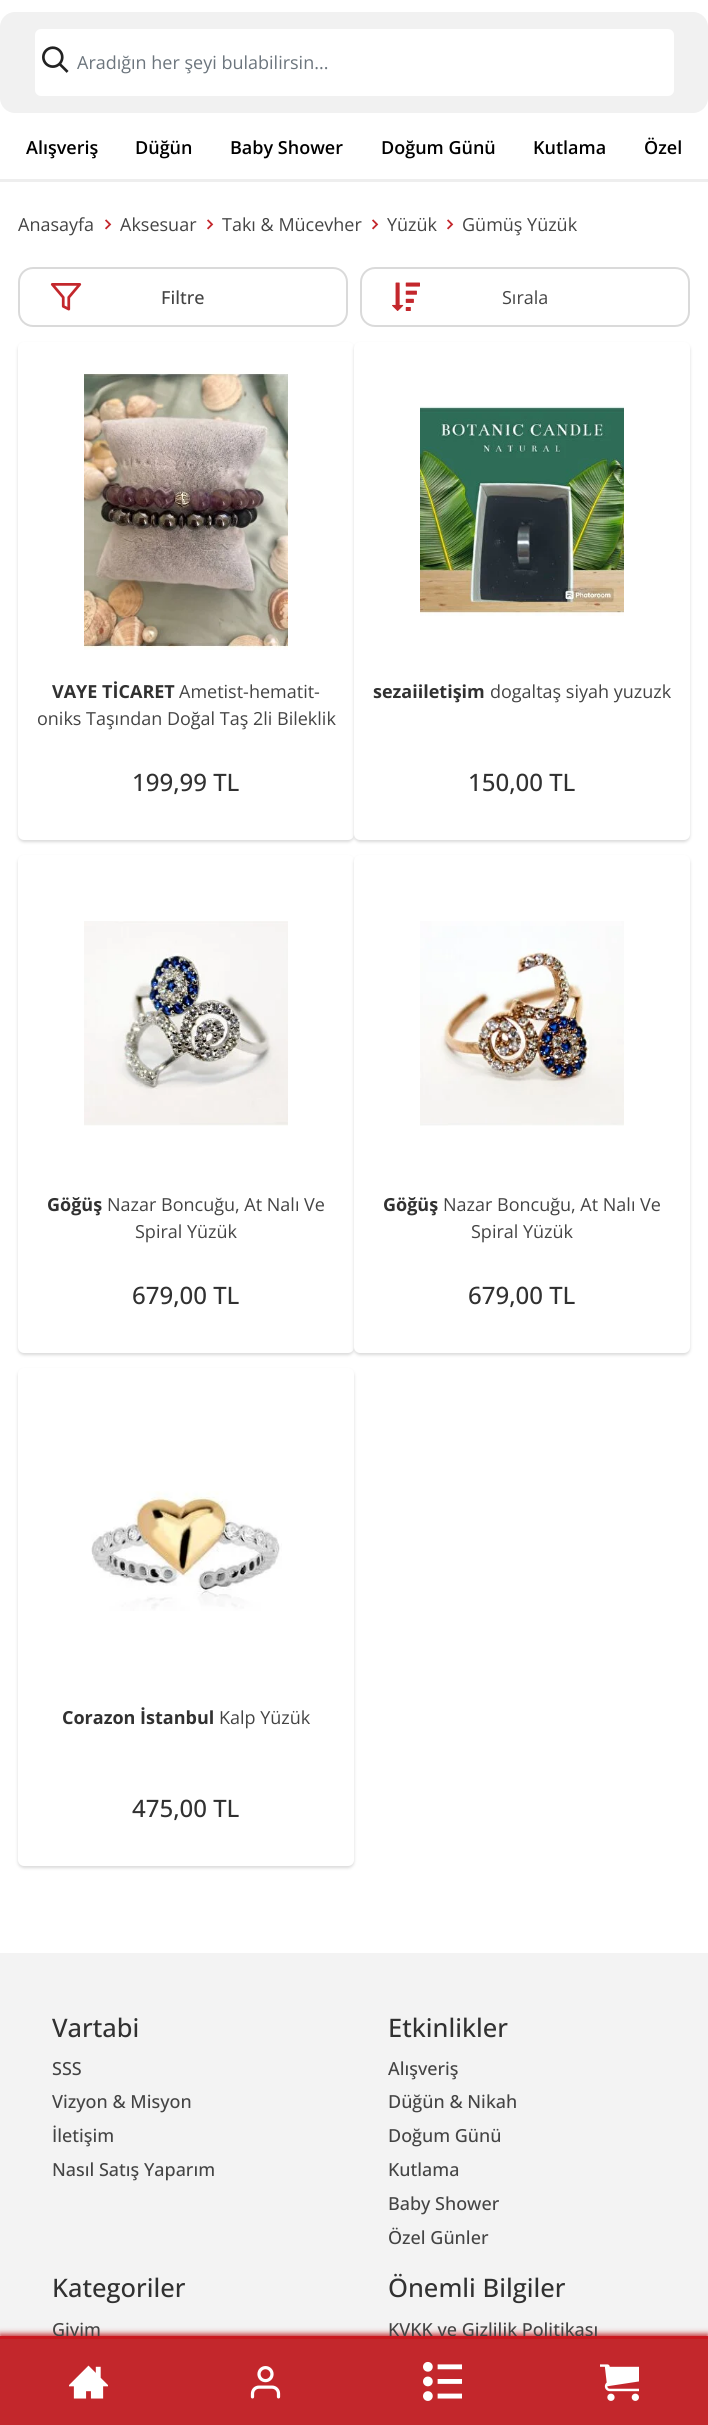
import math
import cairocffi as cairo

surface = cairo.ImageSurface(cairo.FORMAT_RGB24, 708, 2425)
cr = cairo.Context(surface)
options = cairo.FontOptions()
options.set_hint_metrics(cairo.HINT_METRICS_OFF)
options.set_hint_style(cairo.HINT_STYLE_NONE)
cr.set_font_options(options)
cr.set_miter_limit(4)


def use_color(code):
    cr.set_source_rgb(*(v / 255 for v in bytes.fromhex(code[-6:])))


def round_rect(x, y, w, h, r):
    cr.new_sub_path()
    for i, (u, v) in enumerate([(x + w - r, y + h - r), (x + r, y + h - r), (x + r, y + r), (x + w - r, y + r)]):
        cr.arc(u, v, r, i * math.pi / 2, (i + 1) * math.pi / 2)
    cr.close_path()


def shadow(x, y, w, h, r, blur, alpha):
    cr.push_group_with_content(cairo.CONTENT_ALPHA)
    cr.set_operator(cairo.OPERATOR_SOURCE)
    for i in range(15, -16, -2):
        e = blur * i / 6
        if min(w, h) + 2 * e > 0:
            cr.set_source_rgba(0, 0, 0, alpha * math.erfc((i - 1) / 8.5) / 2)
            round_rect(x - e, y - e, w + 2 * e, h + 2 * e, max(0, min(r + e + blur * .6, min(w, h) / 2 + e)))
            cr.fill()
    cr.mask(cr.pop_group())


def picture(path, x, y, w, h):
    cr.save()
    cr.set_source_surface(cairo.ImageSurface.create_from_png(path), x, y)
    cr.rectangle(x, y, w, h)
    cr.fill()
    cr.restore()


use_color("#ffffff")
cr.paint()
use_color("#eeeeee")
cr.rectangle(0, 179, 708, 3)
cr.fill()
use_color("#f1f1f1")
round_rect(0, 12, 708, 101, 15)
cr.fill()
use_color("#ffffff")
round_rect(35, 29, 639, 67, 6)
cr.fill()
picture("img1.png", 42, 46, 27, 27)
cr.select_font_face("Open Sans")
cr.set_font_size(18)
use_color("#6c757d")
cr.move_to(77, 69)
cr.show_text("Aradığın her şeyi bulabilirsin...")
cr.select_font_face("Open Sans SemiBold")
use_color("#000000")
cr.move_to(26, 154)
cr.show_text("Alışveriş")
cr.move_to(135, 154)
cr.show_text("Düğün")
cr.move_to(230, 154)
cr.show_text("Baby Shower")
cr.move_to(381, 154)
cr.show_text("Doğum Günü")
cr.move_to(533, 154)
cr.show_text("Kutlama")
cr.move_to(644, 154)
cr.show_text("Özel")
use_color("#f3f3f3")
cr.rectangle(0, 1953, 708, 383)
cr.fill()
use_color("#c3272c")
shadow(0, 2334, 708, 90, 0, 3, 1)
cr.select_font_face("Open Sans Medium")
use_color("#444444")
cr.move_to(52, 2336)
cr.show_text("Giyim")
use_color("#c3272c")
cr.rectangle(0, 2339, 708, 86)
cr.fill()
use_color("#444444")
cr.move_to(388, 2336)
cr.show_text("KVKK ve Gizlilik Politikası")
use_color("#c9171e")
cr.rectangle(0, 2336, 708, 3)
cr.fill()
picture("img2.png", 69, 2365, 39, 34)
picture("img3.png", 250, 2366, 31, 33)
picture("img4.png", 423, 2361, 39, 40)
picture("img5.png", 600, 2364, 39, 37)
cr.select_font_face("Open Sans")
use_color("#444444")
cr.move_to(18, 231)
cr.show_text("Anasayfa")
picture("img6.png", 105, 219, 7, 11)
cr.move_to(120, 231)
cr.show_text("Aksesuar")
picture("img6.png", 207, 219, 7, 11)
cr.move_to(222, 231)
cr.show_text("Takı & Mücevher")
picture("img6.png", 372, 219, 7, 11)
cr.move_to(387, 231)
cr.show_text("Yüzük")
picture("img6.png", 447, 219, 7, 11)
cr.move_to(462, 231)
cr.show_text("Gümüş Yüzük")
round_rect(19, 268, 328, 58, 14)
use_color("#dadada")
cr.stroke()
picture("img7.png", 50, 283, 32, 28)
cr.select_font_face("Open Sans Medium")
use_color("#444444")
cr.move_to(161, 304)
cr.show_text("Filtre")
round_rect(361, 268, 328, 58, 14)
use_color("#dadada")
cr.stroke()
picture("img8.png", 392, 282, 28, 29)
cr.select_font_face("Open Sans")
use_color("#444444")
cr.move_to(502, 304)
cr.show_text("Sırala")
use_color("#dadada")
shadow(18, 344, 336, 498, 6, 1.5, 1)
use_color("#ffffff")
round_rect(18, 342, 336, 498, 6)
cr.fill()
picture("img9.png", 84, 372, 204, 278)
cr.select_font_face("Open Sans", cairo.FONT_SLANT_NORMAL, cairo.FONT_WEIGHT_BOLD)
use_color("#313131")
cr.move_to(52, 698)
cr.show_text("VAYE TİCARET")
cr.select_font_face("Open Sans")
use_color("#444444")
cr.move_to(179, 698)
cr.show_text("Ametist-hematit-")
cr.move_to(37, 725)
cr.show_text("oniks Taşından Doğal Taş 2li Bileklik")
cr.select_font_face("Open Sans Medium")
cr.set_font_size(24)
use_color("#313131")
cr.move_to(132, 791)
cr.show_text("199,99 TL")
use_color("#dadada")
shadow(354, 344, 336, 498, 6, 1.5, 1)
use_color("#ffffff")
round_rect(354, 342, 336, 498, 6)
cr.fill()
picture("img10.png", 420, 406, 204, 210)
cr.select_font_face("Open Sans", cairo.FONT_SLANT_NORMAL, cairo.FONT_WEIGHT_BOLD)
cr.set_font_size(18)
use_color("#313131")
cr.move_to(373, 698)
cr.show_text("sezaiiletişim")
cr.select_font_face("Open Sans")
use_color("#444444")
cr.move_to(490, 698)
cr.show_text("dogaltaş siyah yuzuzk")
cr.select_font_face("Open Sans Medium")
cr.set_font_size(24)
use_color("#313131")
cr.move_to(468, 791)
cr.show_text("150,00 TL")
use_color("#dadada")
shadow(18, 857, 336, 498, 6, 1.5, 1)
use_color("#ffffff")
round_rect(18, 855, 336, 498, 6)
cr.fill()
picture("img11.png", 84, 921, 204, 205)
cr.select_font_face("Open Sans", cairo.FONT_SLANT_NORMAL, cairo.FONT_WEIGHT_BOLD)
cr.set_font_size(18)
use_color("#313131")
cr.move_to(47, 1211)
cr.show_text("Göğüş")
cr.select_font_face("Open Sans")
use_color("#444444")
cr.move_to(107, 1211)
cr.show_text("Nazar Boncuğu, At Nalı Ve")
cr.move_to(135, 1238)
cr.show_text("Spiral Yüzük")
cr.select_font_face("Open Sans Medium")
cr.set_font_size(24)
use_color("#313131")
cr.move_to(132, 1304)
cr.show_text("679,00 TL")
use_color("#dadada")
shadow(354, 857, 336, 498, 6, 1.5, 1)
use_color("#ffffff")
round_rect(354, 855, 336, 498, 6)
cr.fill()
picture("img12.png", 420, 921, 204, 205)
cr.select_font_face("Open Sans", cairo.FONT_SLANT_NORMAL, cairo.FONT_WEIGHT_BOLD)
cr.set_font_size(18)
use_color("#313131")
cr.move_to(383, 1211)
cr.show_text("Göğüş")
cr.select_font_face("Open Sans")
use_color("#444444")
cr.move_to(443, 1211)
cr.show_text("Nazar Boncuğu, At Nalı Ve")
cr.move_to(471, 1238)
cr.show_text("Spiral Yüzük")
cr.select_font_face("Open Sans Medium")
cr.set_font_size(24)
use_color("#313131")
cr.move_to(468, 1304)
cr.show_text("679,00 TL")
use_color("#dadada")
shadow(18, 1370, 336, 498, 6, 1.5, 1)
use_color("#ffffff")
round_rect(18, 1368, 336, 498, 6)
cr.fill()
picture("img13.png", 91, 1491, 191, 120)
cr.select_font_face("Open Sans", cairo.FONT_SLANT_NORMAL, cairo.FONT_WEIGHT_BOLD)
cr.set_font_size(18)
use_color("#313131")
cr.move_to(62, 1724)
cr.show_text("Corazon İstanbul")
cr.select_font_face("Open Sans")
use_color("#444444")
cr.move_to(219, 1724)
cr.show_text("Kalp Yüzük")
cr.select_font_face("Open Sans Medium")
cr.set_font_size(24)
use_color("#313131")
cr.move_to(132, 1817)
cr.show_text("475,00 TL")
cr.set_font_size(25.5)
cr.move_to(52, 2037)
cr.show_text("Vartabi")
cr.set_font_size(18)
use_color("#444444")
cr.move_to(52, 2075)
cr.show_text("SSS")
cr.move_to(52, 2108)
cr.show_text("Vizyon & Misyon")
cr.move_to(52, 2142)
cr.show_text("İletişim")
cr.move_to(52, 2176)
cr.show_text("Nasıl Satış Yaparım")
cr.set_font_size(25.5)
use_color("#313131")
cr.move_to(388, 2037)
cr.show_text("Etkinlikler")
cr.set_font_size(18)
use_color("#444444")
cr.move_to(388, 2075)
cr.show_text("Alışveriş")
cr.move_to(388, 2108)
cr.show_text("Düğün & Nikah")
cr.move_to(388, 2142)
cr.show_text("Doğum Günü")
cr.move_to(388, 2176)
cr.show_text("Kutlama")
cr.move_to(388, 2210)
cr.show_text("Baby Shower")
cr.move_to(388, 2244)
cr.show_text("Özel Günler")
cr.set_font_size(25.5)
use_color("#313131")
cr.move_to(52, 2297)
cr.show_text("Kategoriler")
cr.move_to(388, 2297)
cr.show_text("Önemli Bilgiler")
surface.write_to_png("result.png")
